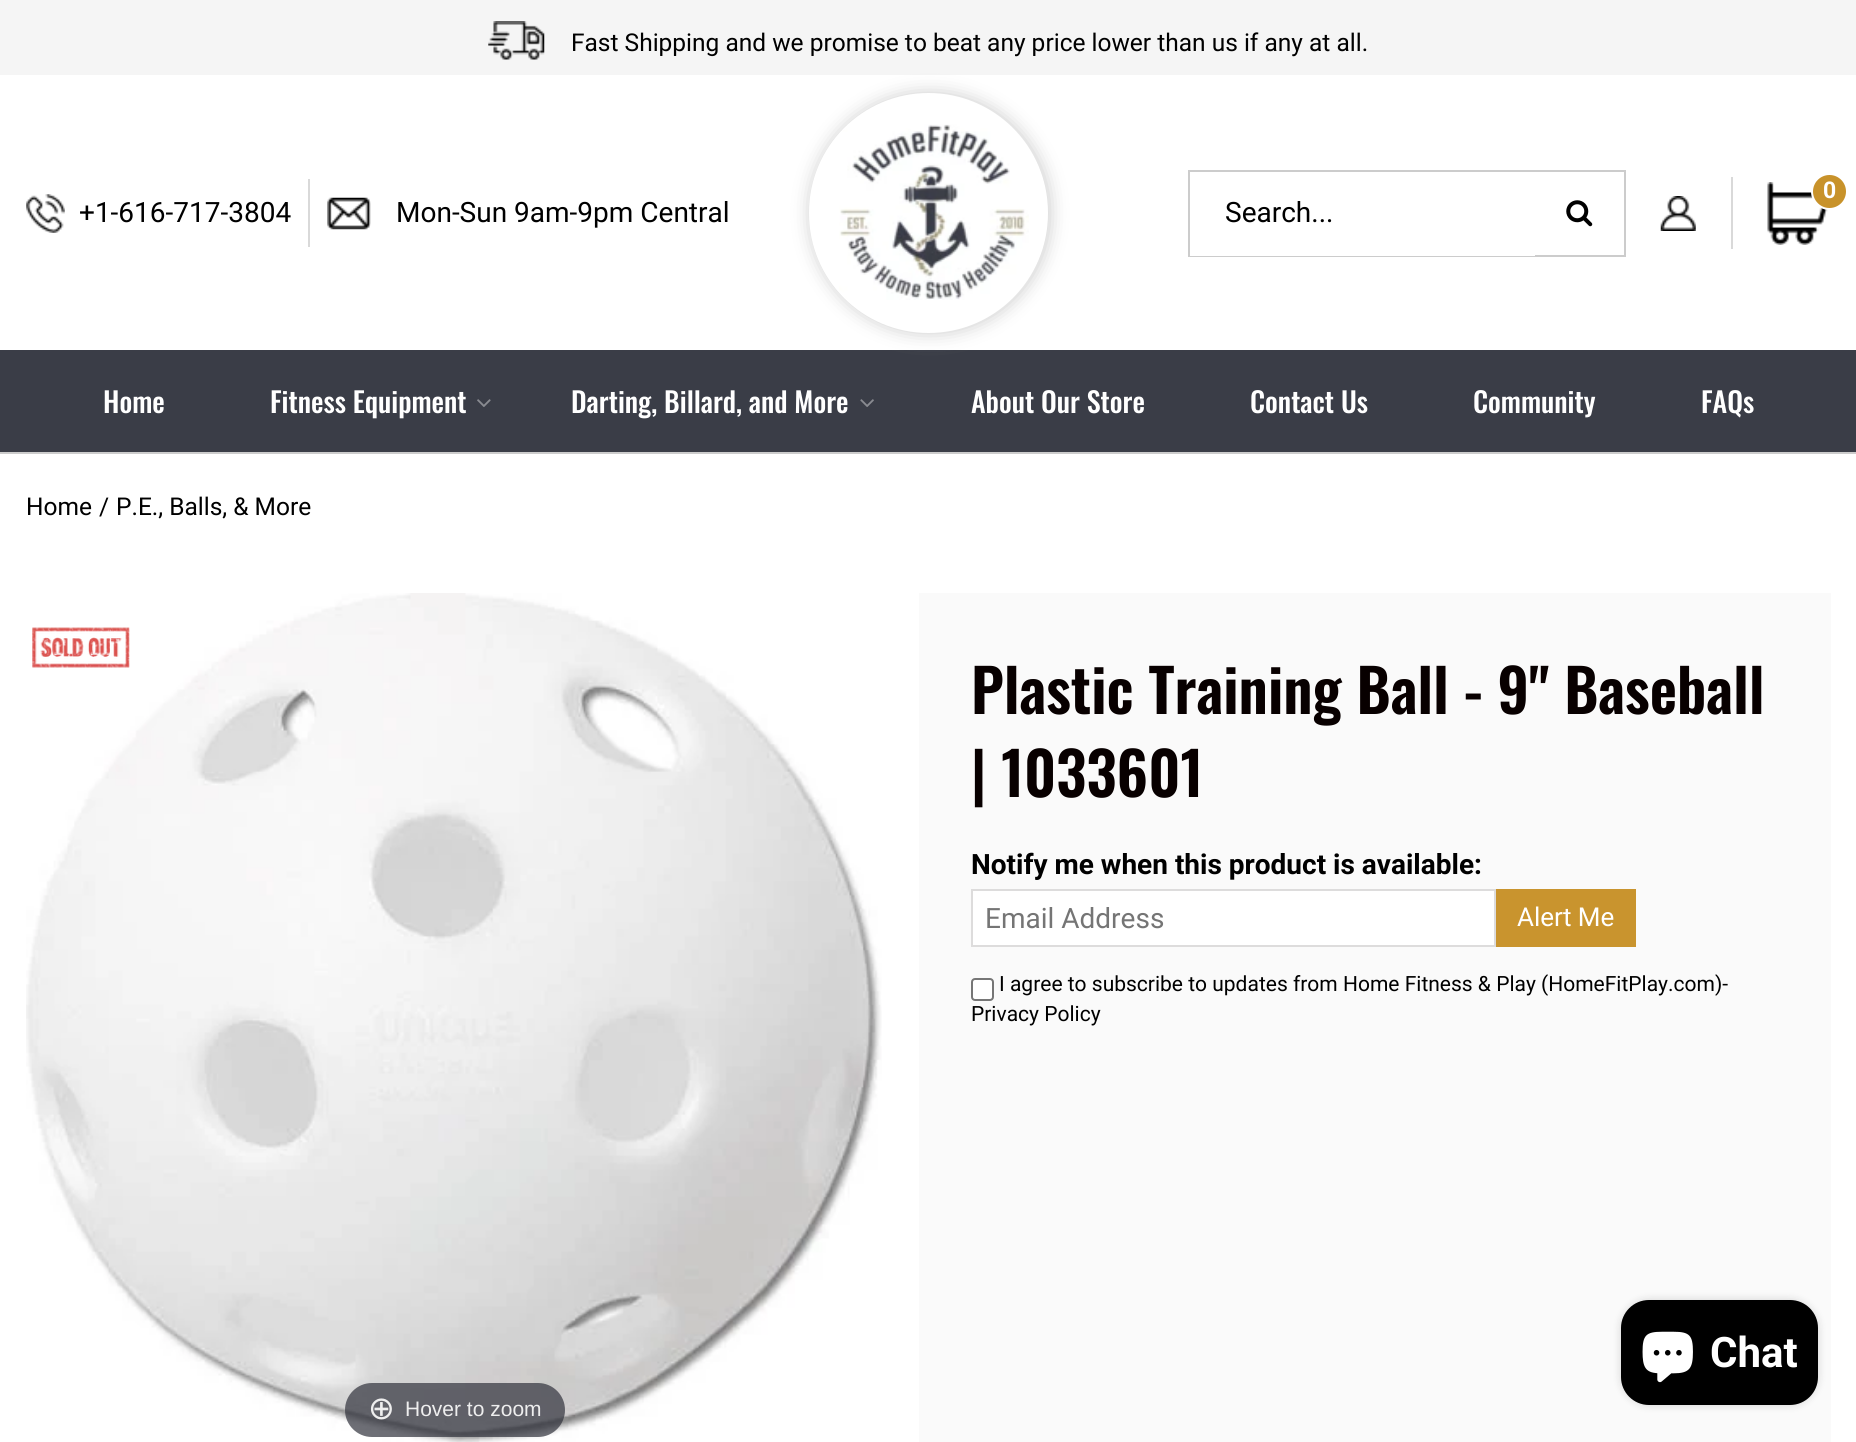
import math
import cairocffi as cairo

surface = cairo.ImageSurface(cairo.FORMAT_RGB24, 1856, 1442)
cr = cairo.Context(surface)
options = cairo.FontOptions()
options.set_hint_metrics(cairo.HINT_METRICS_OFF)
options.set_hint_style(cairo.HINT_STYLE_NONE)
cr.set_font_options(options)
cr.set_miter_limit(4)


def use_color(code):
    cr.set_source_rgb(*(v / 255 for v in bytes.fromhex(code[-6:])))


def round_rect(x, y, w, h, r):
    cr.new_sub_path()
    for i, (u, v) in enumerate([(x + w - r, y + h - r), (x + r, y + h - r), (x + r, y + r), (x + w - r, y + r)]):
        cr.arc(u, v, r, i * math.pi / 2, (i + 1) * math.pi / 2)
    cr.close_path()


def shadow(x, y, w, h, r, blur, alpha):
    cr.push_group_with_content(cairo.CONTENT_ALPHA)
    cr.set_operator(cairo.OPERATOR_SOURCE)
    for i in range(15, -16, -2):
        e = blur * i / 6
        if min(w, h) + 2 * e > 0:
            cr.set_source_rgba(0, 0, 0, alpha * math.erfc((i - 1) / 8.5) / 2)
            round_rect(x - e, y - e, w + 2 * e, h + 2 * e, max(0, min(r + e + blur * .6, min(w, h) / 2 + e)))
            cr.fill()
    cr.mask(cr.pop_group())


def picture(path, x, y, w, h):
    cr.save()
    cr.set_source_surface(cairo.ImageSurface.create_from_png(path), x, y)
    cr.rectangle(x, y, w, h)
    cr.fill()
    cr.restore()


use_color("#ffffff")
cr.paint()
use_color("#cccccc")
cr.rectangle(0, 452, 1856, 2)
cr.fill()
use_color("#f5f5f5")
cr.rectangle(0, 0, 1856, 75)
cr.fill()
picture("img1.png", 488, 21, 57, 39)
cr.select_font_face("Roboto")
cr.set_font_size(24.5)
use_color("#000000")
cr.move_to(571, 51)
cr.show_text("Fast Shipping and we promise to beat any price lower than us if any at all.")
picture("img2.png", 26, 194, 39, 39)
use_color("#d9d9d9")
cr.rectangle(308, 179, 2, 68)
cr.fill()
cr.set_font_size(28)
use_color("#000000")
cr.move_to(79, 222)
cr.show_text("+1-616-717-3804")
picture("img3.png", 327, 197, 44, 33)
cr.move_to(396, 222)
cr.show_text("Mon-Sun 9am-9pm Central")
use_color("#3a3d47")
cr.rectangle(0, 350, 1856, 102)
cr.fill()
use_color("#cccccc")
shadow(810, 93, 240, 240, 120, 9, 1)
use_color("#ffffff")
round_rect(809, 93, 239, 240, 119.5)
cr.fill()
picture("img4.png", 839, 124, 190, 176)
use_color("#d9d9d9")
cr.rectangle(1731, 177, 2, 72)
cr.fill()
picture("img5.png", 1660, 196, 36, 35)
picture("img6.png", 1767, 182, 61, 63)
use_color("#c8922a")
cr.arc(1829.5, 191.5, 17.5, 0, 2 * math.pi)
cr.fill_preserve()
use_color("#ffffff")
cr.stroke()
cr.select_font_face("Roboto", cairo.FONT_SLANT_NORMAL, cairo.FONT_WEIGHT_BOLD)
cr.set_font_size(23)
cr.move_to(1823, 198)
cr.show_text("0")
cr.rectangle(1189, 171, 436, 85)
use_color("#cccccc")
cr.stroke()
use_color("#ffffff")
cr.rectangle(1190, 255, 345, 1)
cr.fill()
cr.select_font_face("Roboto")
cr.set_font_size(28)
use_color("#000000")
cr.move_to(1225, 222)
cr.show_text("Search...")
picture("img7.png", 1566, 200, 27, 27)
cr.select_font_face("Oswald Medium")
use_color("#ffffff")
cr.move_to(103, 413)
cr.show_text("Home")
cr.move_to(270, 413)
cr.show_text("Fitness Equipment")
picture("img8.png", 477, 399, 14, 8)
cr.move_to(571, 413)
cr.show_text("Darting, Billard, and More")
picture("img9.png", 860, 399, 14, 8)
cr.move_to(971, 413)
cr.show_text("About Our Store")
cr.move_to(1250, 413)
cr.show_text("Contact Us")
cr.move_to(1473, 413)
cr.show_text("Community")
cr.move_to(1701, 413)
cr.show_text("FAQs")
cr.select_font_face("Roboto")
cr.set_font_size(24.5)
use_color("#000000")
cr.move_to(26, 515)
cr.show_text("Home")
cr.move_to(99, 515)
cr.show_text("/")
cr.move_to(116, 515)
cr.show_text("P.E., Balls, & More")
use_color("#fafafa")
cr.rectangle(919, 593, 912, 849)
cr.fill()
cr.select_font_face("Oswald SemiBold")
cr.set_font_size(59.5)
use_color("#080000")
cr.move_to(971, 714)
cr.show_text("Plastic Training Ball - 9\" Baseball")
cr.move_to(971, 797)
cr.show_text("| 1033601")
cr.select_font_face("Roboto", cairo.FONT_SLANT_NORMAL, cairo.FONT_WEIGHT_BOLD)
cr.set_font_size(28)
use_color("#000000")
cr.move_to(971, 874)
cr.show_text("Notify me when this product is available:")
use_color("#ffffff")
cr.rectangle(972, 890, 523, 56)
cr.fill_preserve()
use_color("#dddcdc")
cr.stroke()
cr.select_font_face("Roboto")
use_color("#757575")
cr.move_to(985, 928)
cr.show_text("Email Address")
use_color("#c9942e")
cr.rectangle(1496, 889, 140, 58)
cr.fill()
cr.set_font_size(26)
use_color("#ffffff")
cr.move_to(1517, 926)
cr.show_text("Alert Me")
round_rect(972, 979, 21, 21, 3)
cr.fill_preserve()
use_color("#767676")
cr.stroke()
cr.set_font_size(21)
use_color("#000000")
cr.move_to(999, 991)
cr.show_text("I agree to subscribe to updates from Home Fitness & Play (HomeFitPlay.com)-")
cr.move_to(971, 1021)
cr.show_text("Privacy Policy")
picture("img11.png", 26, 593, 856, 849)
picture("img10.png", 32, 627, 98, 41)
cr.set_source_rgba(0.192, 0.2, 0.239, 0.7)
round_rect(345, 1383, 220, 54, 27)
cr.fill()
cr.select_font_face("DejaVu Sans")
cr.set_font_size(32)
use_color("#eeeeee")
cr.move_to(368, 1419)
cr.show_text("⊕")
cr.select_font_face("Liberation Sans")
cr.set_font_size(21)
cr.move_to(405, 1416)
cr.show_text("Hover to zoom")
use_color("#000000")
shadow(1621, 1300, 197, 105, 28, 4.5, 0.15)
use_color("#000000")
round_rect(1621, 1300, 197, 105, 28)
cr.fill()
picture("img12.png", 1642, 1331, 51, 52)
cr.select_font_face("Roboto", cairo.FONT_SLANT_NORMAL, cairo.FONT_WEIGHT_BOLD)
cr.set_font_size(42)
use_color("#ffffff")
cr.move_to(1710, 1367)
cr.show_text("Chat")
surface.write_to_png("result.png")
